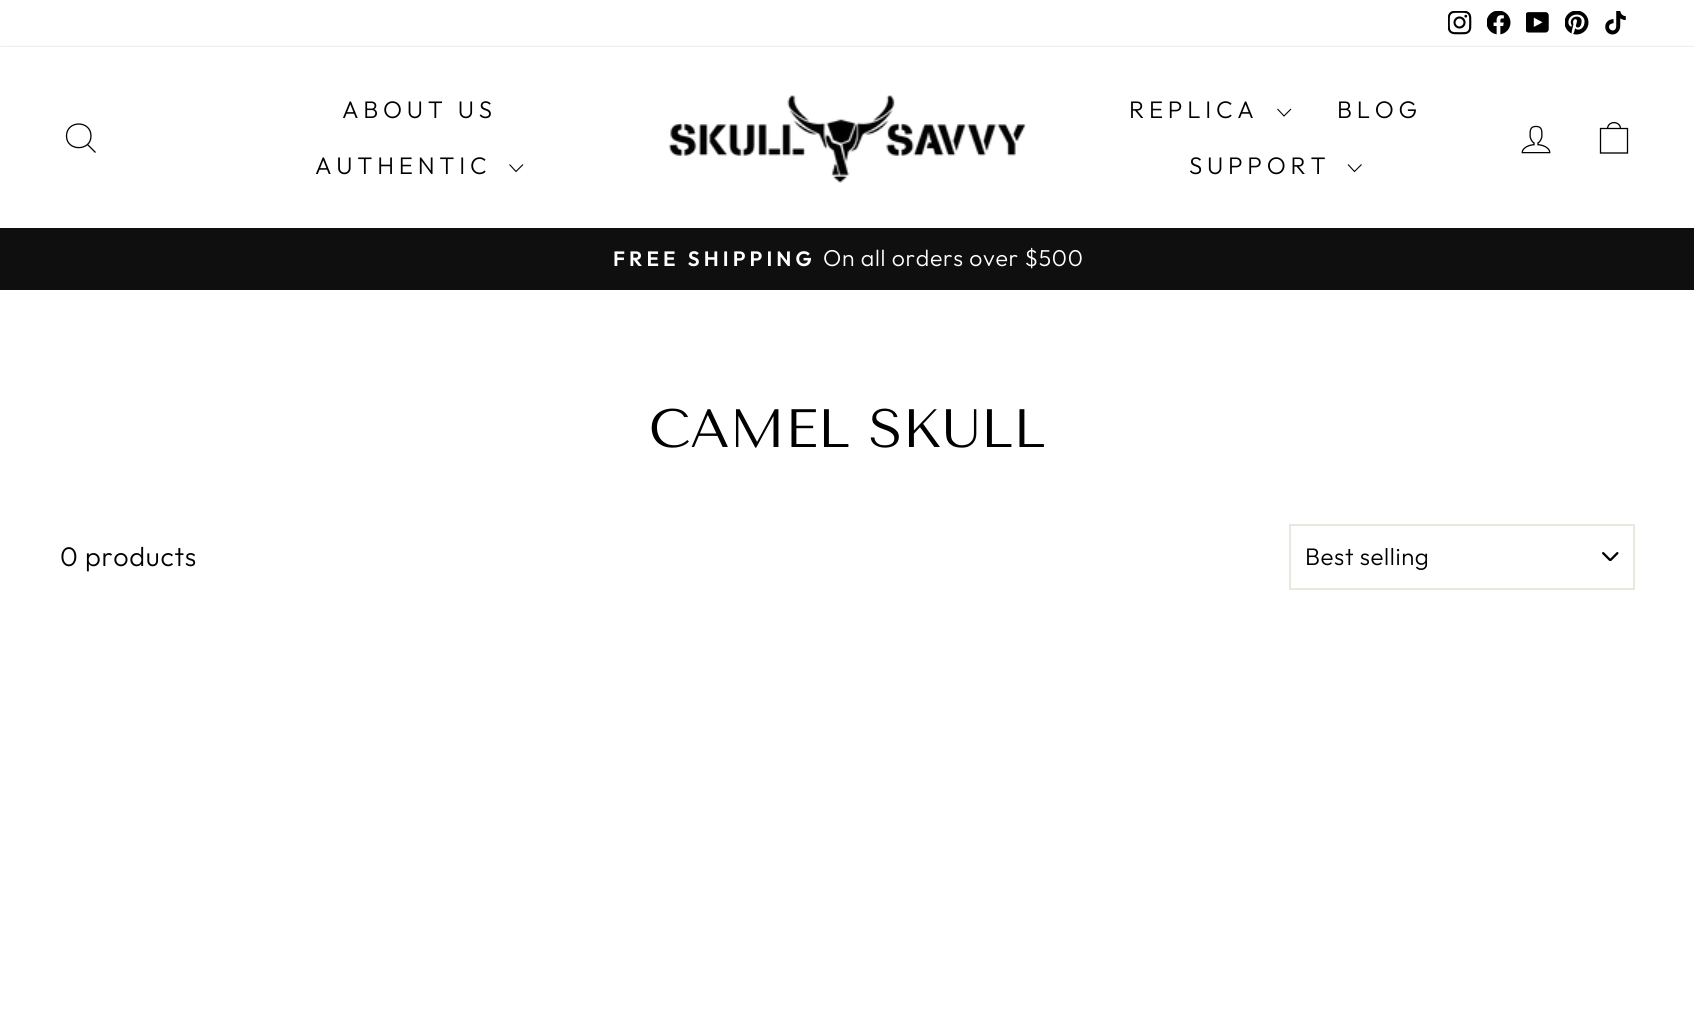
import math
import cairocffi as cairo

surface = cairo.ImageSurface(cairo.FORMAT_RGB24, 1694, 1011)
cr = cairo.Context(surface)
options = cairo.FontOptions()
options.set_hint_metrics(cairo.HINT_METRICS_OFF)
options.set_hint_style(cairo.HINT_STYLE_NONE)
cr.set_font_options(options)
cr.set_miter_limit(4)


def use_color(code):
    cr.set_source_rgb(*(v / 255 for v in bytes.fromhex(code[-6:])))


def spaced_text(x, y, s, letter, word):
    cr.move_to(x, y)
    for ch in s:
        cr.show_text(ch)
        cr.rel_move_to(letter + word * (ch == ' '), 0)


def round_rect(x, y, w, h, r):
    cr.new_sub_path()
    for i, (u, v) in enumerate([(x + w - r, y + h - r), (x + r, y + h - r), (x + r, y + r), (x + w - r, y + r)]):
        cr.arc(u, v, r, i * math.pi / 2, (i + 1) * math.pi / 2)
    cr.close_path()


def shadow(x, y, w, h, r, blur, alpha):
    cr.push_group_with_content(cairo.CONTENT_ALPHA)
    cr.set_operator(cairo.OPERATOR_SOURCE)
    for i in range(15, -16, -2):
        e = blur * i / 6
        if min(w, h) + 2 * e > 0:
            cr.set_source_rgba(0, 0, 0, alpha * math.erfc((i - 1) / 8.5) / 2)
            round_rect(x - e, y - e, w + 2 * e, h + 2 * e, max(0, min(r + e + blur * .6, min(w, h) / 2 + e)))
            cr.fill()
    cr.mask(cr.pop_group())


def picture(path, x, y, w, h):
    cr.save()
    cr.set_source_surface(cairo.ImageSurface.create_from_png(path), x, y)
    cr.rectangle(x, y, w, h)
    cr.fill()
    cr.restore()


use_color("#ffffff")
cr.paint()
picture("img1.png", 1448, 11, 24, 24)
picture("img2.png", 1487, 11, 24, 24)
picture("img3.png", 1526, 12, 23, 21)
picture("img4.png", 1565, 11, 24, 24)
picture("img5.png", 1605, 11, 21, 24)
use_color("#0f0f0f")
cr.rectangle(0, 228, 1694, 62)
cr.fill()
use_color("#000000")
shadow(0, 47, 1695, 181, 0, 1, 0.2)
use_color("#ffffff")
cr.rectangle(0, 47, 1694, 181)
cr.fill()
cr.new_path()
cr.move_to(91, 136)
cr.curve_to(91, 151.5, 66.5, 151.5, 66.5, 136)
cr.curve_to(66.5, 120, 91, 120, 91, 136)
cr.close_path()
cr.move_to(95.5, 152.5)
cr.line_to(87.5, 144.5)
use_color("#000000")
cr.set_line_width(1.3)
cr.stroke()
cr.select_font_face("Outfit Light")
cr.set_font_size(24)
spaced_text(342, 118, "ABOUT US", 4.75, 0)
spaced_text(315, 174, "AUTHENTIC", 4.75, 0)
cr.new_path()
cr.move_to(509.5, 164.5)
cr.line_to(516, 171.5)
cr.line_to(523, 164.5)
cr.set_line_width(1.1)
cr.stroke()
picture("img6.png", 668, 95, 358, 88)
spaced_text(1129, 118, "REPLICA", 4.75, 0)
cr.new_path()
cr.move_to(1277.5, 109)
cr.line_to(1284, 116)
cr.line_to(1291, 109)
cr.stroke()
spaced_text(1337, 118, "BLOG", 4.75, 0)
spaced_text(1189, 174, "SUPPORT", 4.75, 0)
cr.new_path()
cr.move_to(1348, 164.5)
cr.line_to(1354.5, 171.5)
cr.line_to(1361.5, 164.5)
cr.stroke()
picture("img7.png", 1521, 125, 30, 29)
cr.new_path()
cr.move_to(1600.5, 128.5)
cr.line_to(1627.5, 128.5)
cr.line_to(1627.5, 153)
cr.line_to(1600.5, 153)
cr.close_path()
cr.move_to(1607.5, 129)
cr.curve_to(1607.5, 120.5, 1620.5, 120.5, 1620.5, 129)
cr.set_line_width(1.3)
cr.stroke()
cr.select_font_face("Outfit SemiBold")
cr.set_font_size(20.75)
use_color("#ffffff")
spaced_text(613, 266, "FREE SHIPPING", 4.1, 0)
cr.select_font_face("Outfit Light")
cr.set_font_size(23)
spaced_text(823, 266, "On all orders over $500", 0.7, 0)
cr.select_font_face("Tenor Sans")
cr.set_font_size(54)
use_color("#000000")
cr.move_to(649, 447)
cr.show_text("CAMEL SKULL")
cr.select_font_face("Outfit Light")
cr.set_font_size(27)
spaced_text(60, 566, "0 products", 0.7, 0)
picture("img8.png", 1602, 552, 17, 9)
cr.rectangle(1290, 525, 344, 64)
use_color("#e8e8e1")
cr.set_line_width(2)
cr.stroke()
cr.set_font_size(24)
use_color("#000000")
spaced_text(1305, 565, "Best selling", 0.6, 0)
surface.write_to_png("result.png")
